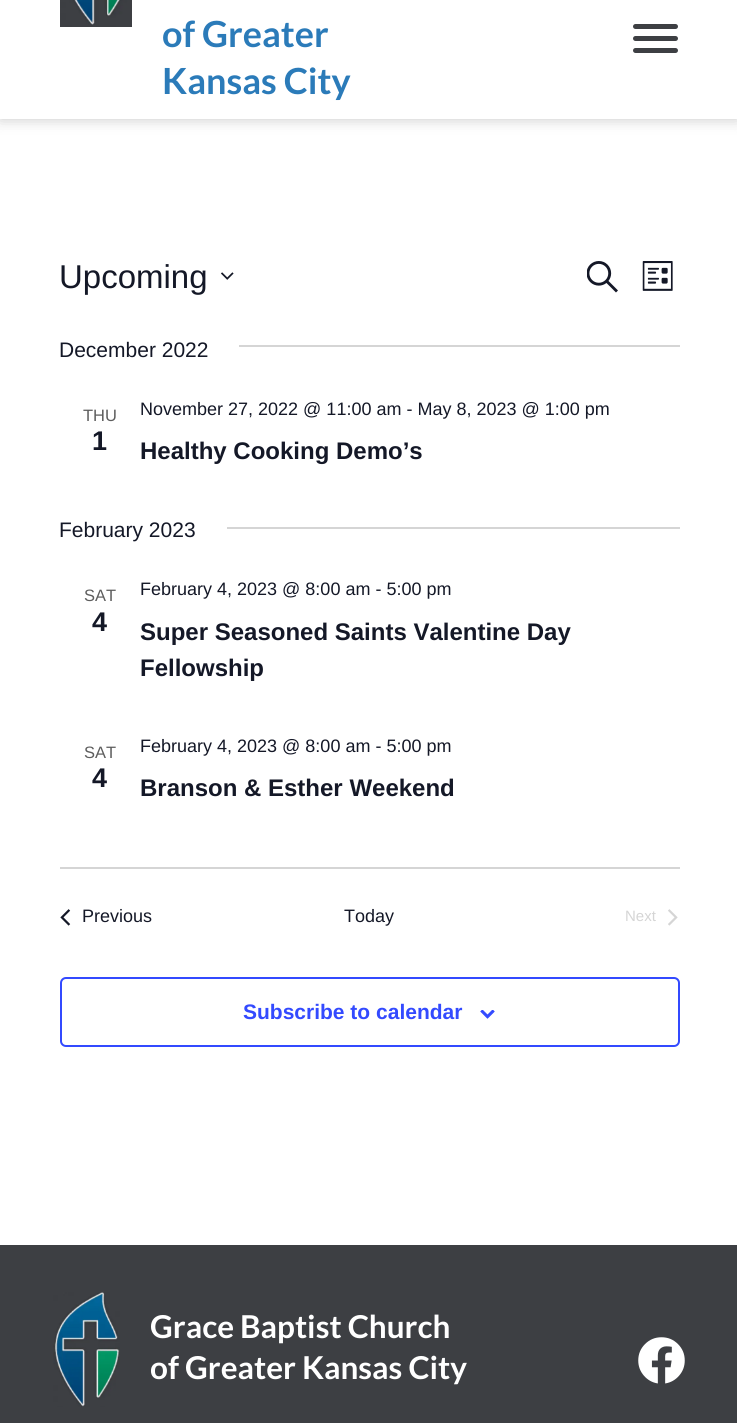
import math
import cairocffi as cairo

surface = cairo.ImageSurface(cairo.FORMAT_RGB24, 737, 1423)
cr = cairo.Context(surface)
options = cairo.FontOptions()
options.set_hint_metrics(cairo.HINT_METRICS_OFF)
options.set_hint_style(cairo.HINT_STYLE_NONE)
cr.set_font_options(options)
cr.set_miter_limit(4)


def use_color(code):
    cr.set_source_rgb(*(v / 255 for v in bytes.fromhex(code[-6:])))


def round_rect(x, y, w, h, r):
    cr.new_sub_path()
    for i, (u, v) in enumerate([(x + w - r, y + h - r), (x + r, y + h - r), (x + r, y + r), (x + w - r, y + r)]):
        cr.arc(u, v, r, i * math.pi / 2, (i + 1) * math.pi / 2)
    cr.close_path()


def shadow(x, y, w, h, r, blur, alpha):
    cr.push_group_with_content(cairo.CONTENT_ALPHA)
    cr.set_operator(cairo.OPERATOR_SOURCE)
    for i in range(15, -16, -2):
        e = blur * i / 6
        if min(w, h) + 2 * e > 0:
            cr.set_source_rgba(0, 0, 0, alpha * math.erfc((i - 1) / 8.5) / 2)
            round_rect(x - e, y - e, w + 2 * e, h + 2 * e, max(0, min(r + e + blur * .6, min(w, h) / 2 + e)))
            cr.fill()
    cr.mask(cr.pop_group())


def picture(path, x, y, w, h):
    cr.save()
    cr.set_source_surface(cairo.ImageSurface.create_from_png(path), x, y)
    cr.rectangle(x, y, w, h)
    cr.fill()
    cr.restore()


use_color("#ffffff")
cr.paint()
use_color("#000000")
shadow(0, -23, 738, 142, 0, 7.5, 0.22)
use_color("#ffffff")
cr.rectangle(0, 0, 737, 119)
cr.fill()
picture("img1.png", 60, 0, 72, 27)
cr.select_font_face("Lato", cairo.FONT_SLANT_NORMAL, cairo.FONT_WEIGHT_BOLD)
cr.set_font_size(36)
use_color("#2b7bb9")
cr.move_to(162, 47)
cr.show_text("of Greater")
cr.move_to(162, 94)
cr.show_text("Kansas City")
use_color("#3d3f43")
round_rect(633, 36, 45, 5, 2.5)
cr.fill()
round_rect(633, 24, 45, 5, 2.5)
cr.fill()
round_rect(633, 48, 45, 5, 2.5)
cr.fill()
cr.select_font_face("Liberation Sans")
cr.set_font_size(33)
use_color("#141827")
cr.move_to(59, 288)
cr.show_text("Upcoming")
picture("img2.png", 221, 272, 13, 8)
picture("img3.png", 587, 261, 31, 32)
picture("img4.png", 642, 261, 31, 30)
cr.set_font_size(21)
cr.move_to(59, 357)
cr.show_text("December 2022")
use_color("#d5d5d5")
cr.rectangle(239, 345, 441, 2)
cr.fill()
cr.set_font_size(16.5)
use_color("#5d5d5d")
cr.move_to(83, 421)
cr.show_text("THU")
cr.select_font_face("Liberation Sans", cairo.FONT_SLANT_NORMAL, cairo.FONT_WEIGHT_BOLD)
cr.set_font_size(27)
use_color("#141827")
cr.move_to(92, 450)
cr.show_text("1")
cr.select_font_face("Liberation Sans")
cr.set_font_size(18)
cr.move_to(140, 415)
cr.show_text("November 27, 2022 @ 11:00 am - May 8, 2023 @ 1:00 pm")
cr.select_font_face("Liberation Sans", cairo.FONT_SLANT_NORMAL, cairo.FONT_WEIGHT_BOLD)
cr.set_font_size(24)
cr.move_to(140, 459)
cr.show_text("Healthy Cooking Demo’s")
cr.select_font_face("Liberation Sans")
cr.set_font_size(21)
cr.move_to(59, 537)
cr.show_text("February 2023")
use_color("#d5d5d5")
cr.rectangle(227, 527, 453, 2)
cr.fill()
cr.set_font_size(16.5)
use_color("#5d5d5d")
cr.move_to(84, 601)
cr.show_text("SAT")
cr.select_font_face("Liberation Sans", cairo.FONT_SLANT_NORMAL, cairo.FONT_WEIGHT_BOLD)
cr.set_font_size(27)
use_color("#141827")
cr.move_to(92, 631)
cr.show_text("4")
cr.select_font_face("Liberation Sans")
cr.set_font_size(18)
cr.move_to(140, 595)
cr.show_text("February 4, 2023 @ 8:00 am - 5:00 pm")
cr.select_font_face("Liberation Sans", cairo.FONT_SLANT_NORMAL, cairo.FONT_WEIGHT_BOLD)
cr.set_font_size(24)
cr.move_to(140, 640)
cr.show_text("Super Seasoned Saints Valentine Day")
cr.move_to(140, 676)
cr.show_text("Fellowship")
cr.select_font_face("Liberation Sans")
cr.set_font_size(16.5)
use_color("#5d5d5d")
cr.move_to(84, 758)
cr.show_text("SAT")
cr.select_font_face("Liberation Sans", cairo.FONT_SLANT_NORMAL, cairo.FONT_WEIGHT_BOLD)
cr.set_font_size(27)
use_color("#141827")
cr.move_to(92, 787)
cr.show_text("4")
cr.select_font_face("Liberation Sans")
cr.set_font_size(18)
cr.move_to(140, 752)
cr.show_text("February 4, 2023 @ 8:00 am - 5:00 pm")
cr.select_font_face("Liberation Sans", cairo.FONT_SLANT_NORMAL, cairo.FONT_WEIGHT_BOLD)
cr.set_font_size(24)
cr.move_to(140, 796)
cr.show_text("Branson & Esther Weekend")
use_color("#d5d5d5")
cr.rectangle(60, 867, 620, 2)
cr.fill()
picture("img5.png", 60, 909, 11, 17)
cr.select_font_face("Liberation Sans")
cr.set_font_size(18)
use_color("#141827")
cr.move_to(82, 922)
cr.show_text("Previous")
cr.move_to(344, 922)
cr.show_text("Today")
cr.set_font_size(15)
use_color("#d5d5d5")
cr.move_to(625, 921)
cr.show_text("Next")
picture("img6.png", 668, 909, 10, 17)
round_rect(61, 978, 618, 68, 5)
use_color("#334aff")
cr.stroke()
cr.select_font_face("Liberation Sans", cairo.FONT_SLANT_NORMAL, cairo.FONT_WEIGHT_BOLD)
cr.set_font_size(21)
cr.move_to(243, 1019)
cr.show_text("Subscribe to calendar")
picture("img7.png", 480, 1010, 15, 9)
use_color("#3d3f43")
cr.rectangle(0, 1245, 737, 178)
cr.fill()
picture("img8.png", 53, 1292, 67, 115)
cr.select_font_face("Lato", cairo.FONT_SLANT_NORMAL, cairo.FONT_WEIGHT_BOLD)
cr.set_font_size(31.5)
use_color("#ffffff")
cr.move_to(150, 1338)
cr.show_text("Grace Baptist Church")
cr.move_to(150, 1379)
cr.show_text("of Greater Kansas City")
picture("img9.png", 638, 1337, 47, 47)
surface.write_to_png("result.png")
